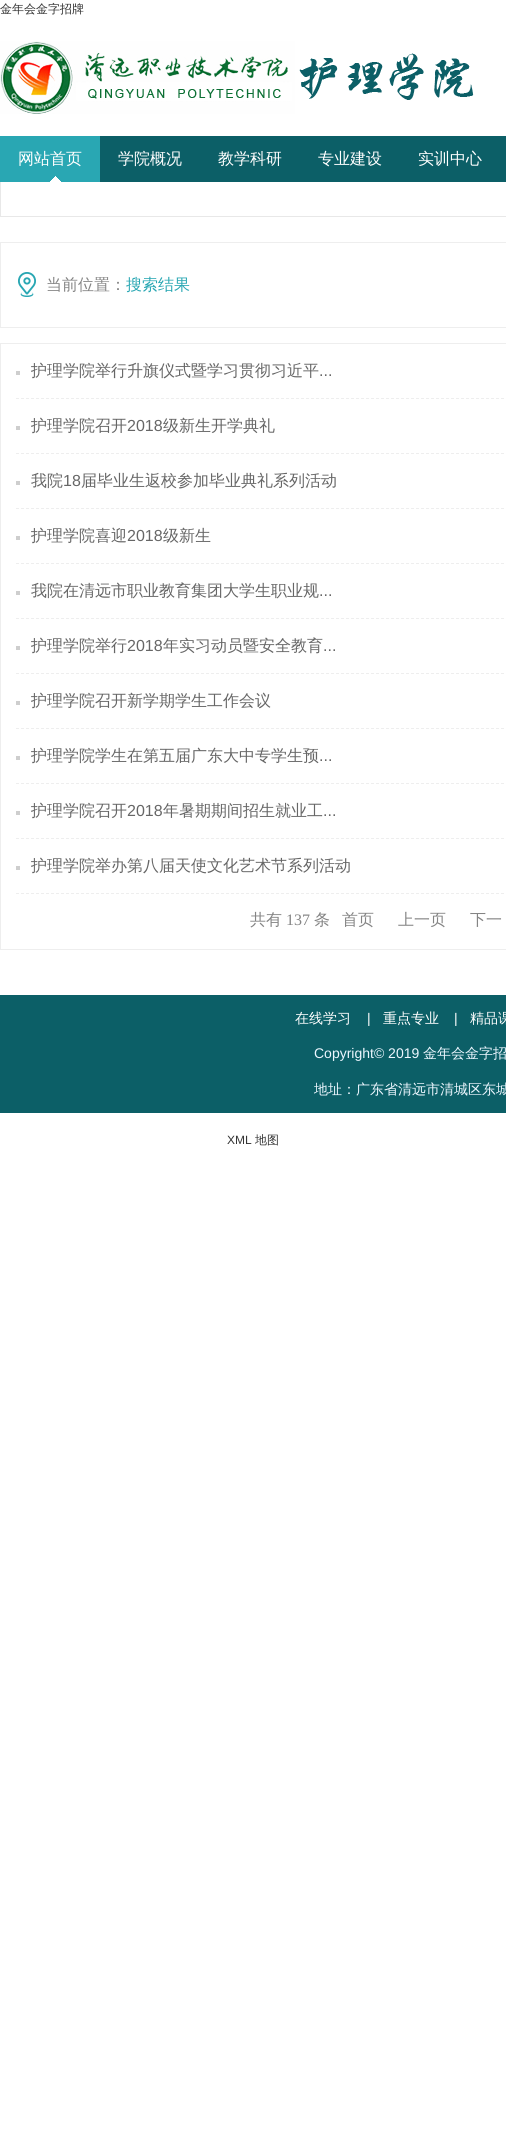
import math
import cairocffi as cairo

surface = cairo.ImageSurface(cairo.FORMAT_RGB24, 506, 2156)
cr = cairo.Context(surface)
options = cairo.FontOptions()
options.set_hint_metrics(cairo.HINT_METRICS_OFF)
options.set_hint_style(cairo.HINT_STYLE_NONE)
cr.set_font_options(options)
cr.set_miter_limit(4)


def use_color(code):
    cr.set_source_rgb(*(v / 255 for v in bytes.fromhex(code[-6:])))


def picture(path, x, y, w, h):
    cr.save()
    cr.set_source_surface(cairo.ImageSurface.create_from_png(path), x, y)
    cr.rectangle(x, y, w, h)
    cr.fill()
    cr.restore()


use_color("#ffffff")
cr.paint()
cr.select_font_face("WenQuanYi Zen Hei Medium")
cr.set_font_size(12)
use_color("#333333")
cr.move_to(0, 13)
cr.show_text("金年会金字招牌")
picture("img1.png", 0, 41, 474, 73)
use_color("#0c5f67")
cr.rectangle(100, 136, 406, 46)
cr.fill()
picture("img2.png", 0, 136, 100, 46)
cr.set_font_size(16)
use_color("#ffffff")
cr.move_to(18, 164)
cr.show_text("网站首页")
cr.move_to(118, 164)
cr.show_text("学院概况")
cr.move_to(218, 164)
cr.show_text("教学科研")
cr.move_to(318, 164)
cr.show_text("专业建设")
cr.move_to(418, 164)
cr.show_text("实训中心")
use_color("#e8e8e8")
cr.rectangle(0, 216, 506, 1)
cr.fill()
cr.rectangle(0, 182, 1, 35)
cr.fill()
cr.rectangle(0.5, 242.5, 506, 85)
use_color("#eeeeee")
cr.set_line_width(1)
cr.stroke()
picture("img3.png", 18, 272, 18, 25)
use_color("#848484")
cr.move_to(46, 290)
cr.show_text("当前位置：")
use_color("#29a7b3")
cr.move_to(126, 290)
cr.show_text("搜索结果")
cr.rectangle(0.5, 343.5, 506, 606)
use_color("#eeeeee")
cr.stroke()
cr.new_path()
cr.move_to(16, 398.5)
cr.line_to(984, 398.5)
cr.set_dash([3, 2])
cr.stroke()
use_color("#cecece")
cr.rectangle(16, 371, 4, 4)
cr.fill()
use_color("#666666")
cr.move_to(31, 376)
cr.show_text("护理学院举行升旗仪式暨学习贯彻习近平")
cr.select_font_face("Liberation Sans")
cr.move_to(319, 376)
cr.show_text("...")
cr.new_path()
cr.move_to(16, 453.5)
cr.line_to(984, 453.5)
use_color("#eeeeee")
cr.stroke()
use_color("#cecece")
cr.rectangle(16, 426, 4, 4)
cr.fill()
cr.select_font_face("WenQuanYi Zen Hei Medium")
use_color("#666666")
cr.move_to(31, 431)
cr.show_text("护理学院召开")
cr.select_font_face("Liberation Sans")
cr.move_to(127, 431)
cr.show_text("2018")
cr.select_font_face("WenQuanYi Zen Hei Medium")
cr.move_to(163, 431)
cr.show_text("级新生开学典礼")
cr.new_path()
cr.move_to(16, 508.5)
cr.line_to(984, 508.5)
use_color("#eeeeee")
cr.stroke()
use_color("#cecece")
cr.rectangle(16, 481, 4, 4)
cr.fill()
use_color("#666666")
cr.move_to(31, 486)
cr.show_text("我院")
cr.select_font_face("Liberation Sans")
cr.move_to(63, 486)
cr.show_text("18")
cr.select_font_face("WenQuanYi Zen Hei Medium")
cr.move_to(81, 486)
cr.show_text("届毕业生返校参加毕业典礼系列活动")
cr.new_path()
cr.move_to(16, 563.5)
cr.line_to(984, 563.5)
use_color("#eeeeee")
cr.stroke()
use_color("#cecece")
cr.rectangle(16, 536, 4, 4)
cr.fill()
use_color("#666666")
cr.move_to(31, 541)
cr.show_text("护理学院喜迎")
cr.select_font_face("Liberation Sans")
cr.move_to(127, 541)
cr.show_text("2018")
cr.select_font_face("WenQuanYi Zen Hei Medium")
cr.move_to(163, 541)
cr.show_text("级新生")
cr.new_path()
cr.move_to(16, 618.5)
cr.line_to(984, 618.5)
use_color("#eeeeee")
cr.stroke()
use_color("#cecece")
cr.rectangle(16, 591, 4, 4)
cr.fill()
use_color("#666666")
cr.move_to(31, 596)
cr.show_text("我院在清远市职业教育集团大学生职业规")
cr.select_font_face("Liberation Sans")
cr.move_to(319, 596)
cr.show_text("...")
cr.new_path()
cr.move_to(16, 673.5)
cr.line_to(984, 673.5)
use_color("#eeeeee")
cr.stroke()
use_color("#cecece")
cr.rectangle(16, 646, 4, 4)
cr.fill()
cr.select_font_face("WenQuanYi Zen Hei Medium")
use_color("#666666")
cr.move_to(31, 651)
cr.show_text("护理学院举行")
cr.select_font_face("Liberation Sans")
cr.move_to(127, 651)
cr.show_text("2018")
cr.select_font_face("WenQuanYi Zen Hei Medium")
cr.move_to(163, 651)
cr.show_text("年实习动员暨安全教育")
cr.select_font_face("Liberation Sans")
cr.move_to(323, 651)
cr.show_text("...")
cr.new_path()
cr.move_to(16, 728.5)
cr.line_to(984, 728.5)
use_color("#eeeeee")
cr.stroke()
use_color("#cecece")
cr.rectangle(16, 701, 4, 4)
cr.fill()
cr.select_font_face("WenQuanYi Zen Hei Medium")
use_color("#666666")
cr.move_to(31, 706)
cr.show_text("护理学院召开新学期学生工作会议")
cr.new_path()
cr.move_to(16, 783.5)
cr.line_to(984, 783.5)
use_color("#eeeeee")
cr.stroke()
use_color("#cecece")
cr.rectangle(16, 756, 4, 4)
cr.fill()
use_color("#666666")
cr.move_to(31, 761)
cr.show_text("护理学院学生在第五届广东大中专学生预")
cr.select_font_face("Liberation Sans")
cr.move_to(319, 761)
cr.show_text("...")
cr.new_path()
cr.move_to(16, 838.5)
cr.line_to(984, 838.5)
use_color("#eeeeee")
cr.stroke()
use_color("#cecece")
cr.rectangle(16, 811, 4, 4)
cr.fill()
cr.select_font_face("WenQuanYi Zen Hei Medium")
use_color("#666666")
cr.move_to(31, 816)
cr.show_text("护理学院召开")
cr.select_font_face("Liberation Sans")
cr.move_to(127, 816)
cr.show_text("2018")
cr.select_font_face("WenQuanYi Zen Hei Medium")
cr.move_to(163, 816)
cr.show_text("年暑期期间招生就业工")
cr.select_font_face("Liberation Sans")
cr.move_to(323, 816)
cr.show_text("...")
cr.new_path()
cr.move_to(16, 893.5)
cr.line_to(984, 893.5)
use_color("#eeeeee")
cr.stroke()
use_color("#cecece")
cr.rectangle(16, 866, 4, 4)
cr.fill()
cr.select_font_face("WenQuanYi Zen Hei Medium")
use_color("#666666")
cr.move_to(31, 871)
cr.show_text("护理学院举办第八届天使文化艺术节系列活动")
use_color("#848484")
cr.move_to(250, 925)
cr.show_text("共有")
cr.select_font_face("Liberation Serif")
cr.move_to(286, 925)
cr.show_text("137")
cr.select_font_face("WenQuanYi Zen Hei Medium")
cr.move_to(314, 925)
cr.show_text("条")
cr.move_to(342, 925)
cr.show_text("首页")
cr.move_to(398, 925)
cr.show_text("上一页")
cr.move_to(470, 925)
cr.show_text("下一")
use_color("#0c5f67")
cr.rectangle(0, 995, 506, 118)
cr.fill()
cr.set_font_size(14)
use_color("#ffffff")
cr.move_to(295, 1023)
cr.show_text("在线学习")
cr.select_font_face("Liberation Sans")
cr.move_to(367, 1023)
cr.show_text("|")
cr.select_font_face("WenQuanYi Zen Hei Medium")
cr.move_to(383, 1023)
cr.show_text("重点专业")
cr.select_font_face("Liberation Sans")
cr.move_to(454, 1023)
cr.show_text("|")
cr.select_font_face("WenQuanYi Zen Hei Medium")
cr.move_to(470, 1023)
cr.show_text("精品课")
cr.select_font_face("Liberation Sans")
use_color("#edf7ff")
cr.move_to(314, 1058)
cr.show_text("Copyright© 2019")
cr.select_font_face("WenQuanYi Zen Hei Medium")
cr.move_to(423, 1058)
cr.show_text("金年会金字招")
cr.move_to(314, 1094)
cr.show_text("地址：广东省清远市清城区东城")
cr.select_font_face("Liberation Sans")
cr.set_font_size(12)
use_color("#333333")
cr.move_to(227, 1144)
cr.show_text("XML")
cr.select_font_face("WenQuanYi Zen Hei Medium")
cr.move_to(255, 1144)
cr.show_text("地图")
surface.write_to_png("result.png")
